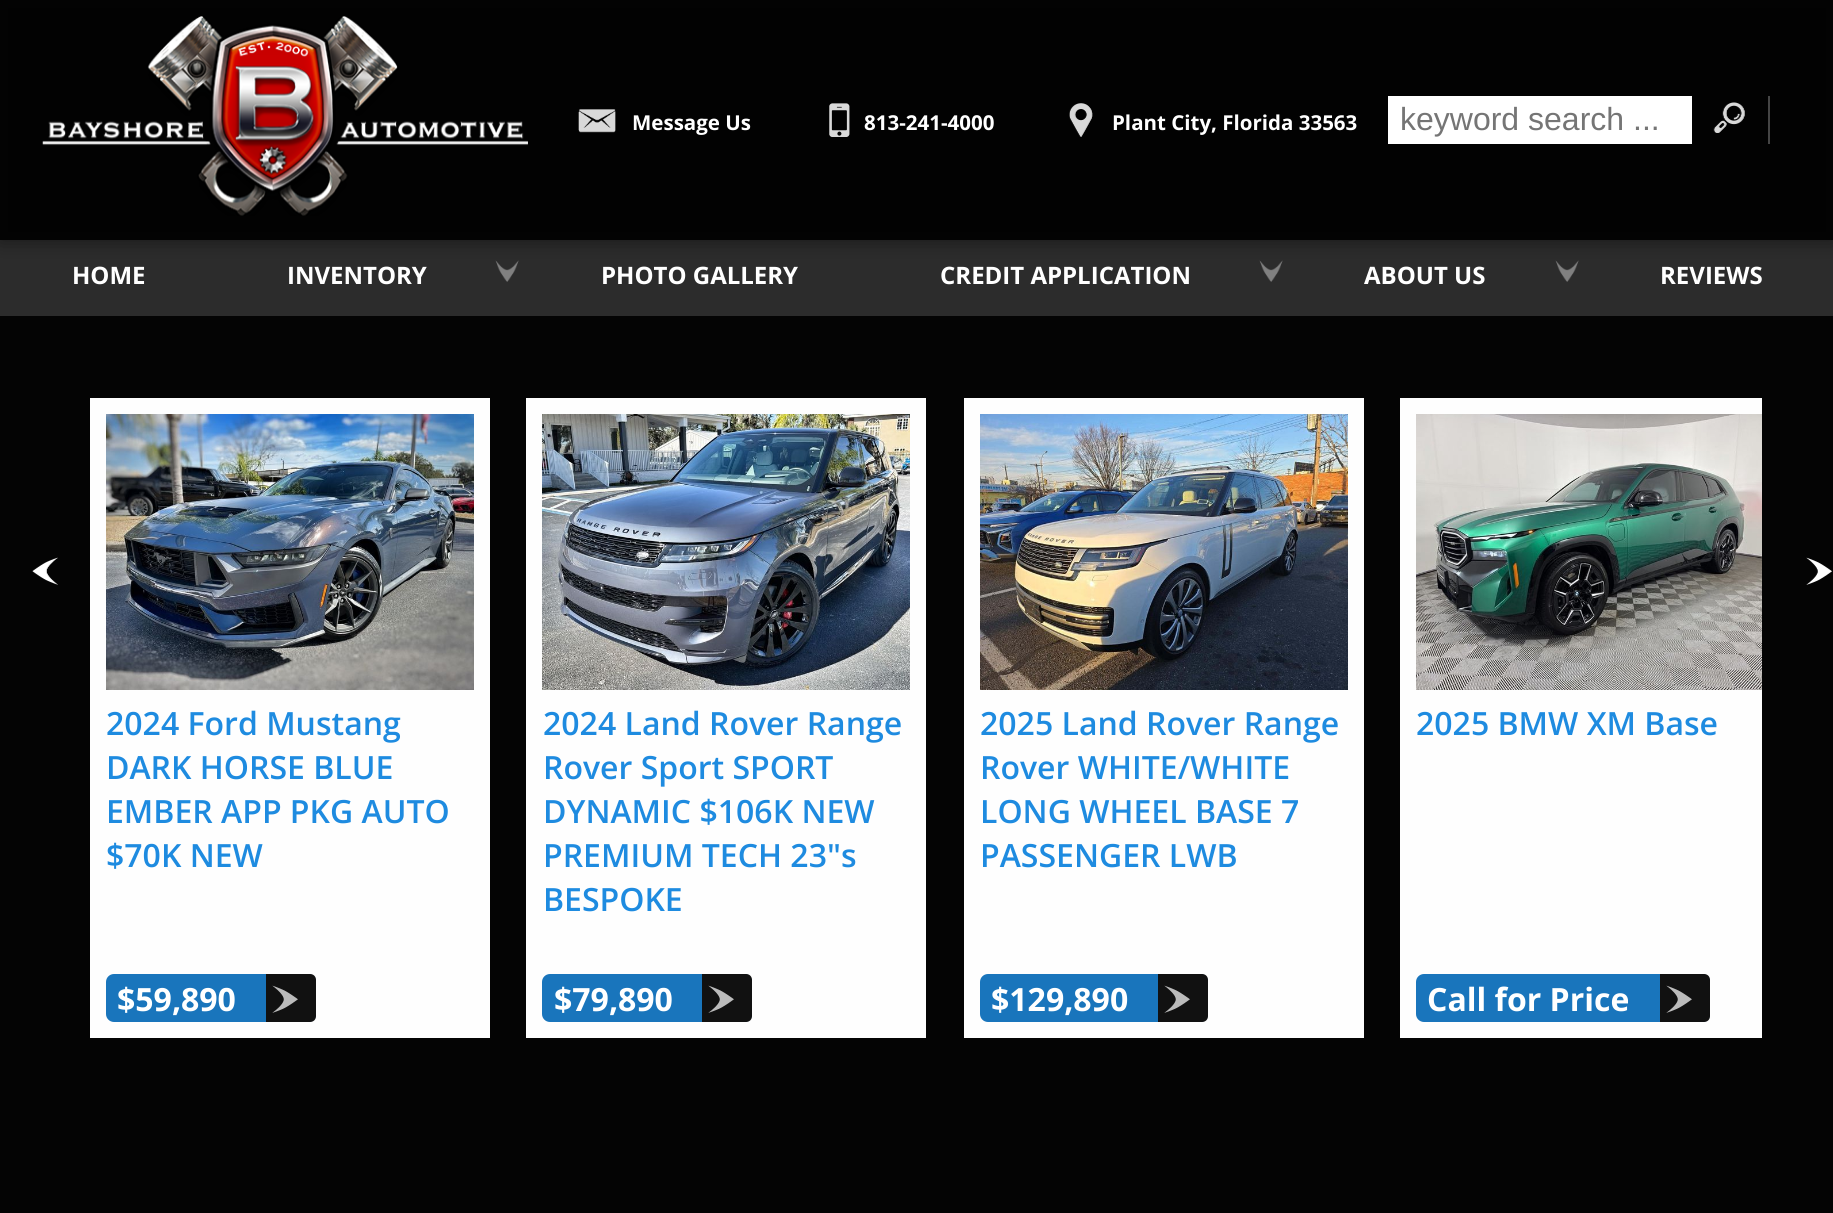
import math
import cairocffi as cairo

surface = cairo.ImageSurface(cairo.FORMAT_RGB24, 1833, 1213)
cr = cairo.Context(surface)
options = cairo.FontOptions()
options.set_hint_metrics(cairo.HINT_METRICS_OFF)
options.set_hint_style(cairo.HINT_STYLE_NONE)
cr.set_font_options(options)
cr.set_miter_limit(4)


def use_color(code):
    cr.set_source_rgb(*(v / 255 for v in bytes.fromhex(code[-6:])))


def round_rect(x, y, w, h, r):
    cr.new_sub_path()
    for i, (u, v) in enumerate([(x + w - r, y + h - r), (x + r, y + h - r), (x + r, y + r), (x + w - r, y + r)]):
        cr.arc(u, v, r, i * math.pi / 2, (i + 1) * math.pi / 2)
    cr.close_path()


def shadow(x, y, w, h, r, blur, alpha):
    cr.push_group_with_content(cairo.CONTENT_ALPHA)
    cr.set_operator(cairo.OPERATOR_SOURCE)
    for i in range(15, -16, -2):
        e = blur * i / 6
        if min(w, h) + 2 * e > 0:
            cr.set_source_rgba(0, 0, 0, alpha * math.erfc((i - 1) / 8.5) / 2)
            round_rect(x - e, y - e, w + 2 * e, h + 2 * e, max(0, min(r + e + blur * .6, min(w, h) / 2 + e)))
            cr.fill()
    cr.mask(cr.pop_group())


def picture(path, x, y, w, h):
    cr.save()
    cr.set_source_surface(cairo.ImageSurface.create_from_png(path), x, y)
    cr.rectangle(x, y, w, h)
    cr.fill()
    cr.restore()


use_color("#040404")
cr.paint()
use_color("#2c2c2c")
cr.rectangle(0, 240, 1833, 76)
cr.fill()
picture("img6.png", 495, 260, 24, 22)
picture("img7.png", 1259, 260, 24, 22)
picture("img6.png", 1555, 260, 24, 22)
use_color("#000000")
shadow(0, 0, 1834, 240, 0, 10, 0.5)
picture("img1.png", 42, 16, 486, 200)
picture("img2.png", 578, 109, 38, 24)
cr.select_font_face("Open Sans", cairo.FONT_SLANT_NORMAL, cairo.FONT_WEIGHT_BOLD)
cr.set_font_size(20.5)
use_color("#ffffff")
cr.move_to(632, 130)
cr.show_text("Message Us")
picture("img3.png", 829, 103, 21, 34)
cr.move_to(864, 130)
cr.show_text("813-241-4000")
picture("img4.png", 1069, 103, 24, 34)
cr.move_to(1112, 130)
cr.show_text("Plant City, Florida 33563")
use_color("#454545")
cr.rectangle(1768, 96, 2, 48)
cr.fill()
use_color("#ffffff")
cr.rectangle(1388, 96, 304, 48)
cr.fill()
cr.select_font_face("Liberation Sans")
cr.set_font_size(32)
use_color("#757575")
cr.move_to(1400, 130)
cr.show_text("keyword search ...")
picture("img5.png", 1713, 102, 32, 31)
cr.select_font_face("Open Sans", cairo.FONT_SLANT_NORMAL, cairo.FONT_WEIGHT_BOLD)
cr.set_font_size(24)
use_color("#ffffff")
cr.move_to(72, 284)
cr.show_text("HOME")
cr.move_to(287, 284)
cr.show_text("INVENTORY")
cr.move_to(601, 284)
cr.show_text("PHOTO GALLERY")
cr.move_to(940, 284)
cr.show_text("CREDIT APPLICATION")
cr.move_to(1364, 284)
cr.show_text("ABOUT US")
cr.move_to(1660, 284)
cr.show_text("REVIEWS")
picture("img8.png", 32, 557, 26, 28)
picture("img9.png", 1806, 557, 26, 28)
use_color("#fefefe")
cr.rectangle(90, 398, 400, 640)
cr.fill()
picture("img10.png", 106, 414, 368, 276)
cr.select_font_face("Open Sans SemiBold")
cr.set_font_size(32)
use_color("#1e8be0")
cr.move_to(106, 735)
cr.show_text("2024 Ford Mustang")
cr.move_to(106, 779)
cr.show_text("DARK HORSE BLUE")
cr.move_to(106, 823)
cr.show_text("EMBER APP PKG AUTO")
cr.move_to(106, 867)
cr.show_text("$70K NEW")
use_color("#1975bc")
round_rect(106, 974, 210, 48, 8)
cr.fill()
use_color("#111111")
cr.new_path()
cr.move_to(266, 974)
cr.line_to(310, 974)
cr.curve_to(313.5, 974, 316, 976.5, 316, 980)
cr.line_to(316, 1016)
cr.curve_to(316, 1019.5, 313.5, 1022, 310, 1022)
cr.line_to(266, 1022)
cr.close_path()
cr.fill()
cr.select_font_face("Open Sans", cairo.FONT_SLANT_NORMAL, cairo.FONT_WEIGHT_BOLD)
use_color("#ffffff")
cr.move_to(117, 1011)
cr.show_text("$59,890")
picture("img11.png", 272, 985, 26, 28)
use_color("#fefefe")
cr.rectangle(526, 398, 400, 640)
cr.fill()
picture("img12.png", 542, 414, 368, 276)
cr.select_font_face("Open Sans SemiBold")
use_color("#1e8be0")
cr.move_to(543, 735)
cr.show_text("2024 Land Rover Range")
cr.move_to(543, 779)
cr.show_text("Rover Sport SPORT")
cr.move_to(543, 823)
cr.show_text("DYNAMIC $106K NEW")
cr.move_to(543, 867)
cr.show_text("PREMIUM TECH 23\"s")
cr.move_to(543, 911)
cr.show_text("BESPOKE")
use_color("#1975bc")
round_rect(542, 974, 210, 48, 8)
cr.fill()
use_color("#111111")
cr.new_path()
cr.move_to(702, 974)
cr.line_to(746, 974)
cr.curve_to(749.5, 974, 752, 976.5, 752, 980)
cr.line_to(752, 1016)
cr.curve_to(752, 1019.5, 749.5, 1022, 746, 1022)
cr.line_to(702, 1022)
cr.close_path()
cr.fill()
cr.select_font_face("Open Sans", cairo.FONT_SLANT_NORMAL, cairo.FONT_WEIGHT_BOLD)
use_color("#ffffff")
cr.move_to(554, 1011)
cr.show_text("$79,890")
picture("img11.png", 708, 985, 26, 28)
use_color("#fefefe")
cr.rectangle(964, 398, 400, 640)
cr.fill()
picture("img13.png", 980, 414, 368, 276)
cr.select_font_face("Open Sans SemiBold")
use_color("#1e8be0")
cr.move_to(980, 735)
cr.show_text("2025 Land Rover Range")
cr.move_to(980, 779)
cr.show_text("Rover WHITE/WHITE")
cr.move_to(980, 823)
cr.show_text("LONG WHEEL BASE 7")
cr.move_to(980, 867)
cr.show_text("PASSENGER LWB")
use_color("#1975bc")
round_rect(980, 974, 228, 48, 8)
cr.fill()
use_color("#111111")
cr.new_path()
cr.move_to(1158, 974)
cr.line_to(1202, 974)
cr.curve_to(1205.5, 974, 1208, 976.5, 1208, 980)
cr.line_to(1208, 1016)
cr.curve_to(1208, 1019.5, 1205.5, 1022, 1202, 1022)
cr.line_to(1158, 1022)
cr.close_path()
cr.fill()
cr.select_font_face("Open Sans", cairo.FONT_SLANT_NORMAL, cairo.FONT_WEIGHT_BOLD)
use_color("#ffffff")
cr.move_to(991, 1011)
cr.show_text("$129,890")
picture("img11.png", 1164, 985, 26, 28)
use_color("#fefefe")
cr.rectangle(1400, 398, 362, 640)
cr.fill()
picture("img14.png", 1416, 414, 346, 276)
cr.select_font_face("Open Sans SemiBold")
use_color("#1e8be0")
cr.move_to(1416, 735)
cr.show_text("2025 BMW XM Base")
use_color("#1975bc")
round_rect(1416, 974, 294, 48, 8)
cr.fill()
use_color("#111111")
cr.new_path()
cr.move_to(1660, 974)
cr.line_to(1704, 974)
cr.curve_to(1707.5, 974, 1710, 976.5, 1710, 980)
cr.line_to(1710, 1016)
cr.curve_to(1710, 1019.5, 1707.5, 1022, 1704, 1022)
cr.line_to(1660, 1022)
cr.close_path()
cr.fill()
cr.select_font_face("Open Sans", cairo.FONT_SLANT_NORMAL, cairo.FONT_WEIGHT_BOLD)
use_color("#ffffff")
cr.move_to(1427, 1011)
cr.show_text("Call for Price")
picture("img11.png", 1666, 985, 26, 28)
surface.write_to_png("result.png")
